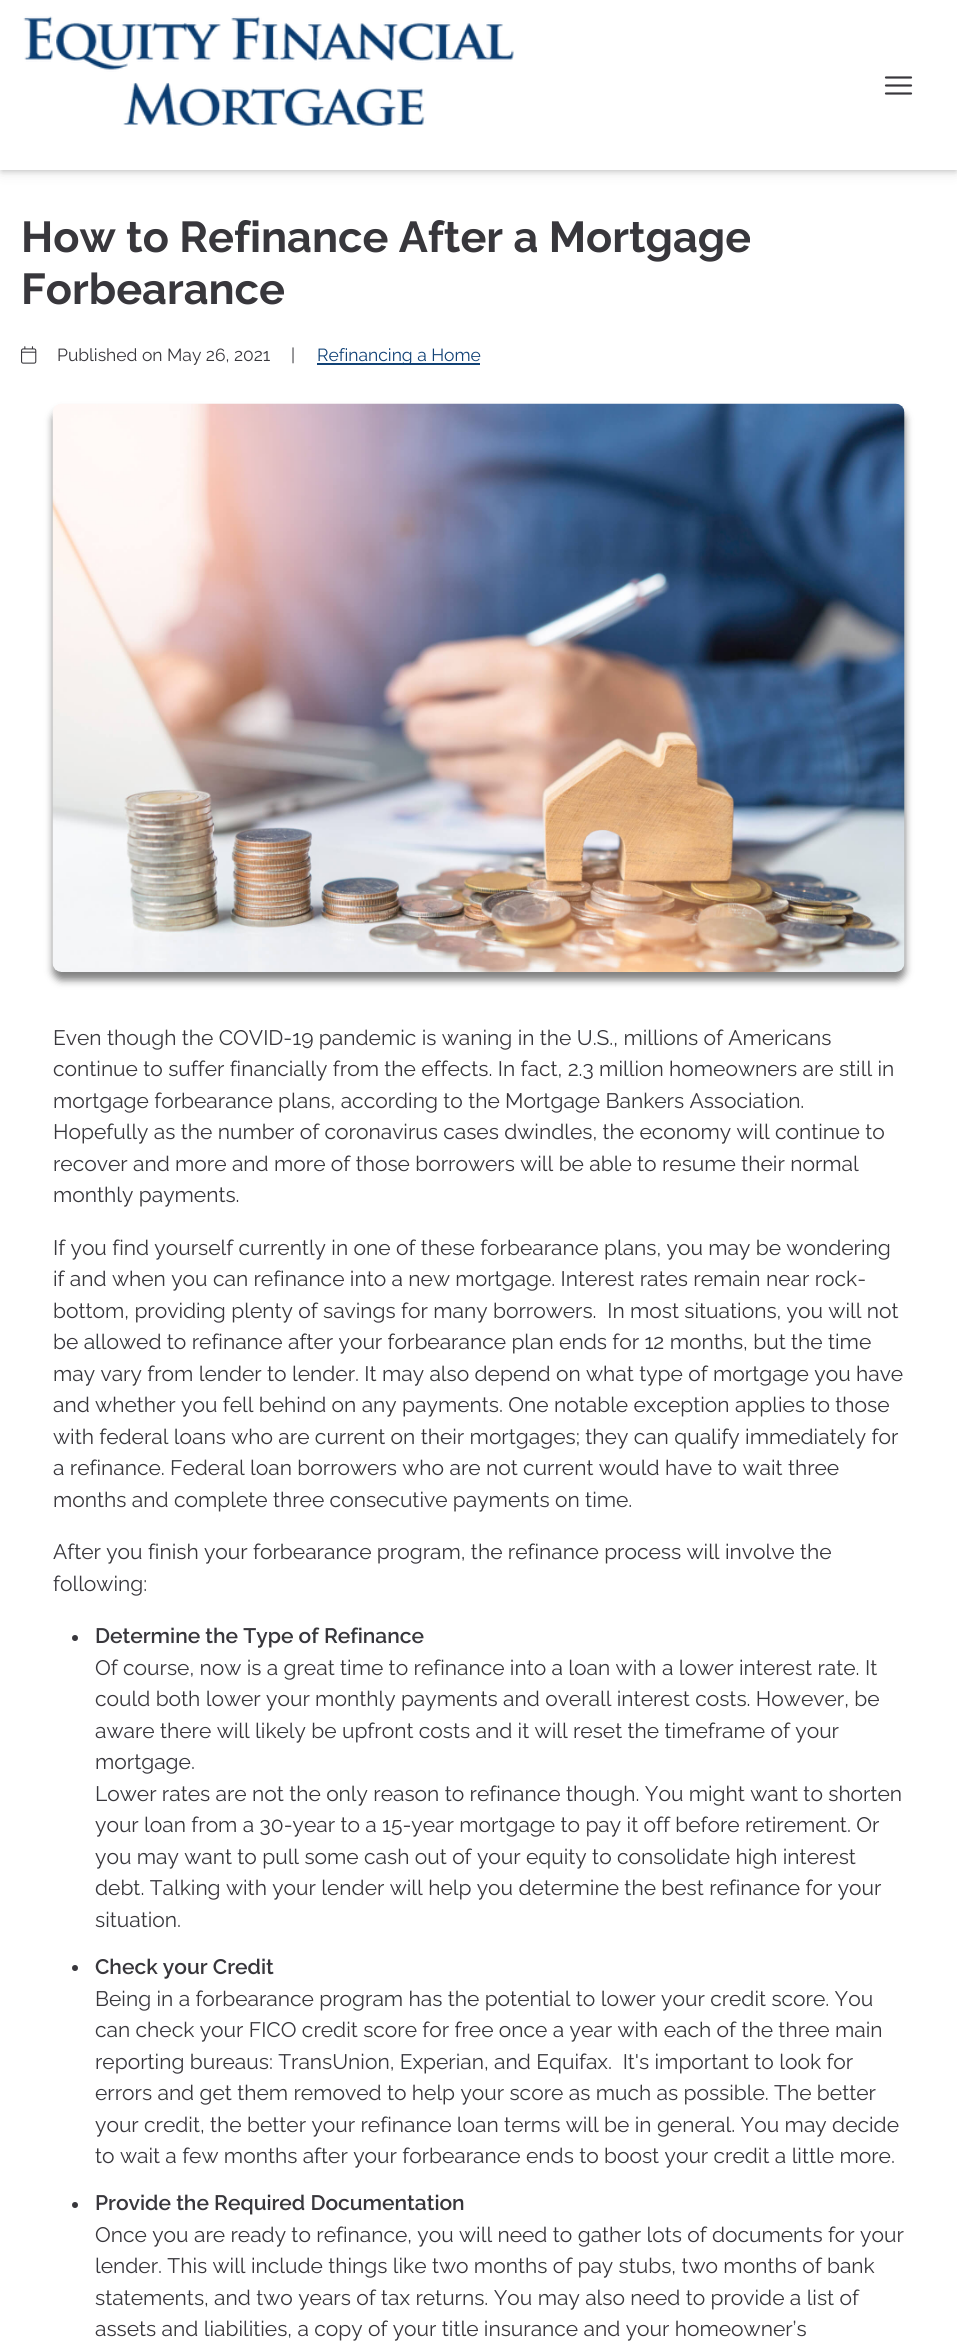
import math
import cairocffi as cairo

surface = cairo.ImageSurface(cairo.FORMAT_RGB24, 957, 2348)
cr = cairo.Context(surface)
options = cairo.FontOptions()
options.set_hint_metrics(cairo.HINT_METRICS_OFF)
options.set_hint_style(cairo.HINT_STYLE_NONE)
cr.set_font_options(options)
cr.set_miter_limit(4)


def use_color(code):
    cr.set_source_rgb(*(v / 255 for v in bytes.fromhex(code[-6:])))


def round_rect(x, y, w, h, r):
    cr.new_sub_path()
    for i, (u, v) in enumerate([(x + w - r, y + h - r), (x + r, y + h - r), (x + r, y + r), (x + w - r, y + r)]):
        cr.arc(u, v, r, i * math.pi / 2, (i + 1) * math.pi / 2)
    cr.close_path()


def shadow(x, y, w, h, r, blur, alpha):
    cr.push_group_with_content(cairo.CONTENT_ALPHA)
    cr.set_operator(cairo.OPERATOR_SOURCE)
    for i in range(15, -16, -2):
        e = blur * i / 6
        if min(w, h) + 2 * e > 0:
            cr.set_source_rgba(0, 0, 0, alpha * math.erfc((i - 1) / 8.5) / 2)
            round_rect(x - e, y - e, w + 2 * e, h + 2 * e, max(0, min(r + e + blur * .6, min(w, h) / 2 + e)))
            cr.fill()
    cr.mask(cr.pop_group())


def picture(path, x, y, w, h):
    cr.save()
    cr.set_source_surface(cairo.ImageSurface.create_from_png(path), x, y)
    cr.rectangle(x, y, w, h)
    cr.fill()
    cr.restore()


use_color("#ffffff")
cr.paint()
use_color("#000000")
shadow(0, 2, 957, 169, 0, 7.5, 0.1)
shadow(2, 5, 954, 166, 0, 3, 0.2)
use_color("#ffffff")
cr.rectangle(0, 0, 957, 170)
cr.fill()
picture("img1.png", 23, 16, 491, 110)
cr.new_path()
cr.move_to(886, 77.5)
cr.line_to(911, 77.5)
cr.move_to(886, 85.5)
cr.line_to(911, 85.5)
cr.move_to(886, 93.5)
cr.line_to(911, 93.5)
use_color("#38373c")
cr.set_line_width(2.2)
cr.set_line_cap(cairo.LINE_CAP_ROUND)
cr.set_line_join(cairo.LINE_JOIN_ROUND)
cr.stroke()
cr.select_font_face("Raleway", cairo.FONT_SLANT_NORMAL, cairo.FONT_WEIGHT_BOLD)
cr.set_font_size(43.25)
cr.move_to(21, 252)
cr.show_text("How to Refinance After a Mortgage")
cr.move_to(21, 304)
cr.show_text("Forbearance")
picture("img2.png", 21, 346, 16, 18)
cr.select_font_face("Raleway")
cr.set_font_size(17.5)
cr.move_to(57, 361)
cr.show_text("Published on May 26, 2021")
cr.move_to(291, 361)
cr.show_text("|")
use_color("#114276")
cr.rectangle(317, 363, 163, 2)
cr.fill()
cr.move_to(317, 361)
cr.show_text("Refinancing a Home")
use_color("#000000")
shadow(53, 411, 852, 569, 9, 4, 0.5)
picture("img3.png", 52, 403, 853, 569)
cr.set_font_size(21)
use_color("#38373c")
cr.move_to(53, 1045)
cr.show_text("Even though the COVID-19 pandemic is waning in the U.S., millions of Americans")
cr.move_to(53, 1076)
cr.show_text("continue to suffer financially from the effects. In fact, 2.3 million homeowners are still in")
cr.move_to(53, 1108)
cr.show_text("mortgage forbearance plans, according to the Mortgage Bankers Association.")
cr.move_to(53, 1139)
cr.show_text("Hopefully as the number of coronavirus cases dwindles, the economy will continue to")
cr.move_to(53, 1171)
cr.show_text("recover and more and more of those borrowers will be able to resume their normal")
cr.move_to(53, 1202)
cr.show_text("monthly payments.")
cr.move_to(53, 1255)
cr.show_text("If you find yourself currently in one of these forbearance plans, you may be wondering")
cr.move_to(53, 1286)
cr.show_text("if and when you can refinance into a new mortgage. Interest rates remain near rock-")
cr.move_to(53, 1318)
cr.show_text("bottom, providing plenty of savings for many borrowers.  In most situations, you will not")
cr.move_to(53, 1349)
cr.show_text("be allowed to refinance after your forbearance plan ends for 12 months, but the time")
cr.move_to(53, 1381)
cr.show_text("may vary from lender to lender. It may also depend on what type of mortgage you have")
cr.move_to(53, 1412)
cr.show_text("and whether you fell behind on any payments. One notable exception applies to those")
cr.move_to(53, 1444)
cr.show_text("with federal loans who are current on their mortgages; they can qualify immediately for")
cr.move_to(53, 1475)
cr.show_text("a refinance. Federal loan borrowers who are not current would have to wait three")
cr.move_to(53, 1507)
cr.show_text("months and complete three consecutive payments on time.")
cr.move_to(53, 1559)
cr.show_text("After you finish your forbearance program, the refinance process will involve the")
cr.move_to(53, 1591)
cr.show_text("following:")
cr.new_path()
cr.arc(75, 1638, 3, 0, 2 * math.pi)
cr.fill()
cr.select_font_face("Raleway SemiBold")
cr.move_to(95, 1643)
cr.show_text("Determine the Type of Refinance")
cr.select_font_face("Raleway")
cr.move_to(95, 1675)
cr.show_text("Of course, now is a great time to refinance into a loan with a lower interest rate. It")
cr.move_to(95, 1706)
cr.show_text("could both lower your monthly payments and overall interest costs. However, be")
cr.move_to(95, 1738)
cr.show_text("aware there will likely be upfront costs and it will reset the timeframe of your")
cr.move_to(95, 1769)
cr.show_text("mortgage.")
cr.move_to(95, 1801)
cr.show_text("Lower rates are not the only reason to refinance though. You might want to shorten")
cr.move_to(95, 1832)
cr.show_text("your loan from a 30-year to a 15-year mortgage to pay it off before retirement. Or")
cr.move_to(95, 1864)
cr.show_text("you may want to pull some cash out of your equity to consolidate high interest")
cr.move_to(95, 1895)
cr.show_text("debt. Talking with your lender will help you determine the best refinance for your")
cr.move_to(95, 1927)
cr.show_text("situation.")
cr.new_path()
cr.arc(75, 1968, 3, 0, 2 * math.pi)
cr.fill()
cr.select_font_face("Raleway SemiBold")
cr.move_to(95, 1974)
cr.show_text("Check your Credit")
cr.select_font_face("Raleway")
cr.move_to(95, 2006)
cr.show_text("Being in a forbearance program has the potential to lower your credit score. You")
cr.move_to(95, 2037)
cr.show_text("can check your FICO credit score for free once a year with each of the three main")
cr.move_to(95, 2069)
cr.show_text("reporting bureaus: TransUnion, Experian, and Equifax.  It's important to look for")
cr.move_to(95, 2100)
cr.show_text("errors and get them removed to help your score as much as possible. The better")
cr.move_to(95, 2132)
cr.show_text("your credit, the better your refinance loan terms will be in general. You may decide")
cr.move_to(95, 2163)
cr.show_text("to wait a few months after your forbearance ends to boost your credit a little more.")
cr.new_path()
cr.arc(75, 2205, 3, 0, 2 * math.pi)
cr.fill()
cr.select_font_face("Raleway SemiBold")
cr.move_to(95, 2210)
cr.show_text("Provide the Required Documentation")
cr.select_font_face("Raleway")
cr.move_to(95, 2242)
cr.show_text("Once you are ready to refinance, you will need to gather lots of documents for your")
cr.move_to(95, 2273)
cr.show_text("lender. This will include things like two months of pay stubs, two months of bank")
cr.move_to(95, 2305)
cr.show_text("statements, and two years of tax returns. You may also need to provide a list of")
cr.move_to(95, 2336)
cr.show_text("assets and liabilities, a copy of your title insurance and your homeowner’s")
surface.write_to_png("result.png")
